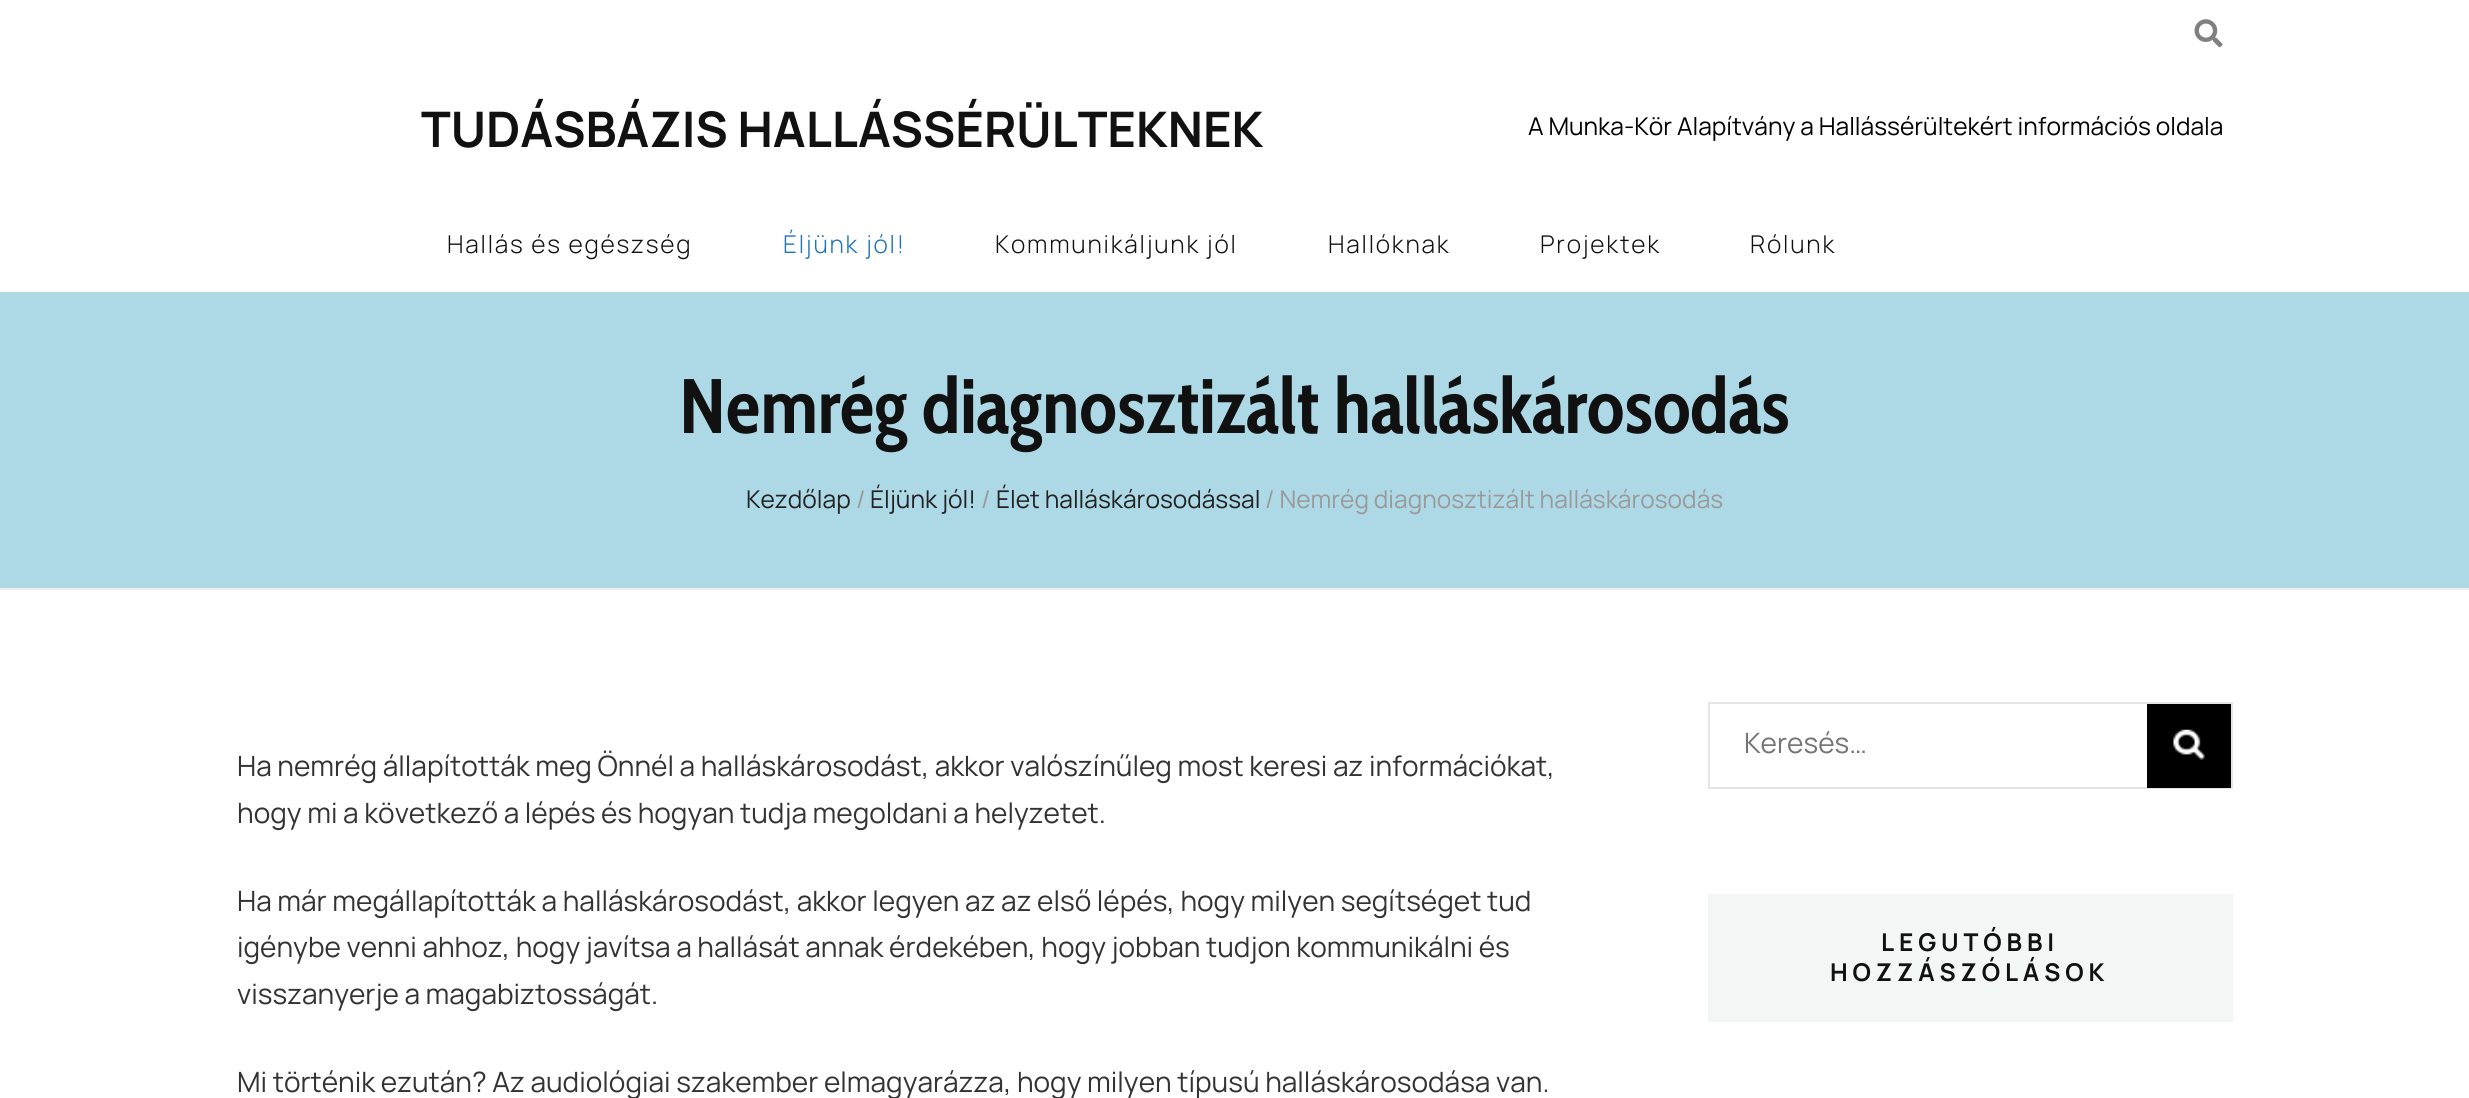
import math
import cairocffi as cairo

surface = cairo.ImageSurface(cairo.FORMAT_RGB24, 2469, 1098)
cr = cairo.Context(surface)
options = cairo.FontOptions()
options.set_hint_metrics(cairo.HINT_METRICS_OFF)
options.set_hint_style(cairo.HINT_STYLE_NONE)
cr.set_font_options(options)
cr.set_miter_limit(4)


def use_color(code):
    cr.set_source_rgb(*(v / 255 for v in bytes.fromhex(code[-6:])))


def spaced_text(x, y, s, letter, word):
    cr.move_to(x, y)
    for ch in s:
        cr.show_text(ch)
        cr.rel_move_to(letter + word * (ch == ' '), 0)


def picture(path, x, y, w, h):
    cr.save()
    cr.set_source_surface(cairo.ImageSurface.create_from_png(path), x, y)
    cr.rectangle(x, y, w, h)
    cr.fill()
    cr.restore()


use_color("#ffffff")
cr.paint()
picture("img1.png", 2194, 19, 29, 29)
cr.select_font_face("Manrope", cairo.FONT_SLANT_NORMAL, cairo.FONT_WEIGHT_BOLD)
cr.set_font_size(49)
use_color("#111111")
cr.move_to(421, 147)
cr.show_text("TUDÁSBÁZIS HALLÁSSÉRÜLTEKNEK")
cr.select_font_face("Manrope")
cr.set_font_size(24.5)
use_color("#000000")
cr.move_to(1528, 135)
cr.show_text("A Munka-Kör Alapítvány a Hallássérültekért információs oldala")
cr.select_font_face("Manrope Light")
use_color("#111111")
spaced_text(447, 253, "Hallás és egészség", 1.8, 0)
use_color("#1e73be")
spaced_text(783, 253, "Éljünk jól!", 1.8, 0)
use_color("#111111")
spaced_text(995, 253, "Kommunikáljunk jól", 1.8, 0)
spaced_text(1328, 253, "Hallóknak", 1.8, 0)
spaced_text(1540, 253, "Projektek", 1.8, 0)
spaced_text(1750, 253, "Rólunk", 1.8, 0)
use_color("#add8e6")
cr.rectangle(0, 292, 2469, 296)
cr.fill()
use_color("#eeeeee")
cr.rectangle(0, 588, 2469, 2)
cr.fill()
cr.select_font_face("Cabin Condensed", cairo.FONT_SLANT_NORMAL, cairo.FONT_WEIGHT_BOLD)
cr.set_font_size(77)
use_color("#111111")
cr.move_to(679, 433)
cr.show_text("Nemrég diagnosztizált halláskárosodás")
cr.select_font_face("Manrope")
cr.set_font_size(24.5)
use_color("#222222")
cr.move_to(746, 508)
cr.show_text("Kezdőlap")
use_color("#999999")
cr.move_to(856, 508)
cr.show_text("/")
use_color("#222222")
cr.move_to(870, 508)
cr.show_text("Éljünk jól!")
use_color("#999999")
cr.move_to(981, 508)
cr.show_text("/")
use_color("#222222")
cr.move_to(996, 508)
cr.show_text("Élet halláskárosodással")
use_color("#999999")
cr.move_to(1265, 508)
cr.show_text("/ Nemrég diagnosztizált halláskárosodás")
cr.set_font_size(28)
use_color("#333333")
cr.move_to(237, 776)
cr.show_text("Ha nemrég állapították meg Önnél a halláskárosodást, akkor valószínűleg most keresi az információkat,")
cr.move_to(237, 823)
cr.show_text("hogy mi a következő a lépés és hogyan tudja megoldani a helyzetet.")
cr.move_to(237, 911)
cr.show_text("Ha már megállapították a halláskárosodást, akkor legyen az az első lépés, hogy milyen segítséget tud")
cr.move_to(237, 957)
cr.show_text("igénybe venni ahhoz, hogy javítsa a hallását annak érdekében, hogy jobban tudjon kommunikálni és")
cr.move_to(237, 1004)
cr.show_text("visszanyerje a magabiztosságát.")
cr.move_to(237, 1092)
cr.show_text("Mi történik ezután? Az audiológiai szakember elmagyarázza, hogy milyen típusú halláskárosodása van.")
cr.rectangle(1709, 703, 523, 85)
use_color("#e5e5e5")
cr.stroke()
use_color("#757575")
cr.move_to(1744, 753)
cr.show_text("Keresés…")
use_color("#000000")
cr.rectangle(2147, 704, 84, 84)
cr.fill()
picture("img2.png", 2173, 729, 32, 31)
use_color("#f2f7f6")
cr.rectangle(1708, 894, 525, 128)
cr.fill()
cr.select_font_face("Manrope", cairo.FONT_SLANT_NORMAL, cairo.FONT_WEIGHT_BOLD)
cr.set_font_size(24.5)
use_color("#111111")
spaced_text(1881, 951, "LEGUTÓBBI", 4.9, 0)
spaced_text(1830, 981, "HOZZÁSZÓLÁSOK", 4.9, 0)
surface.write_to_png("result.png")
